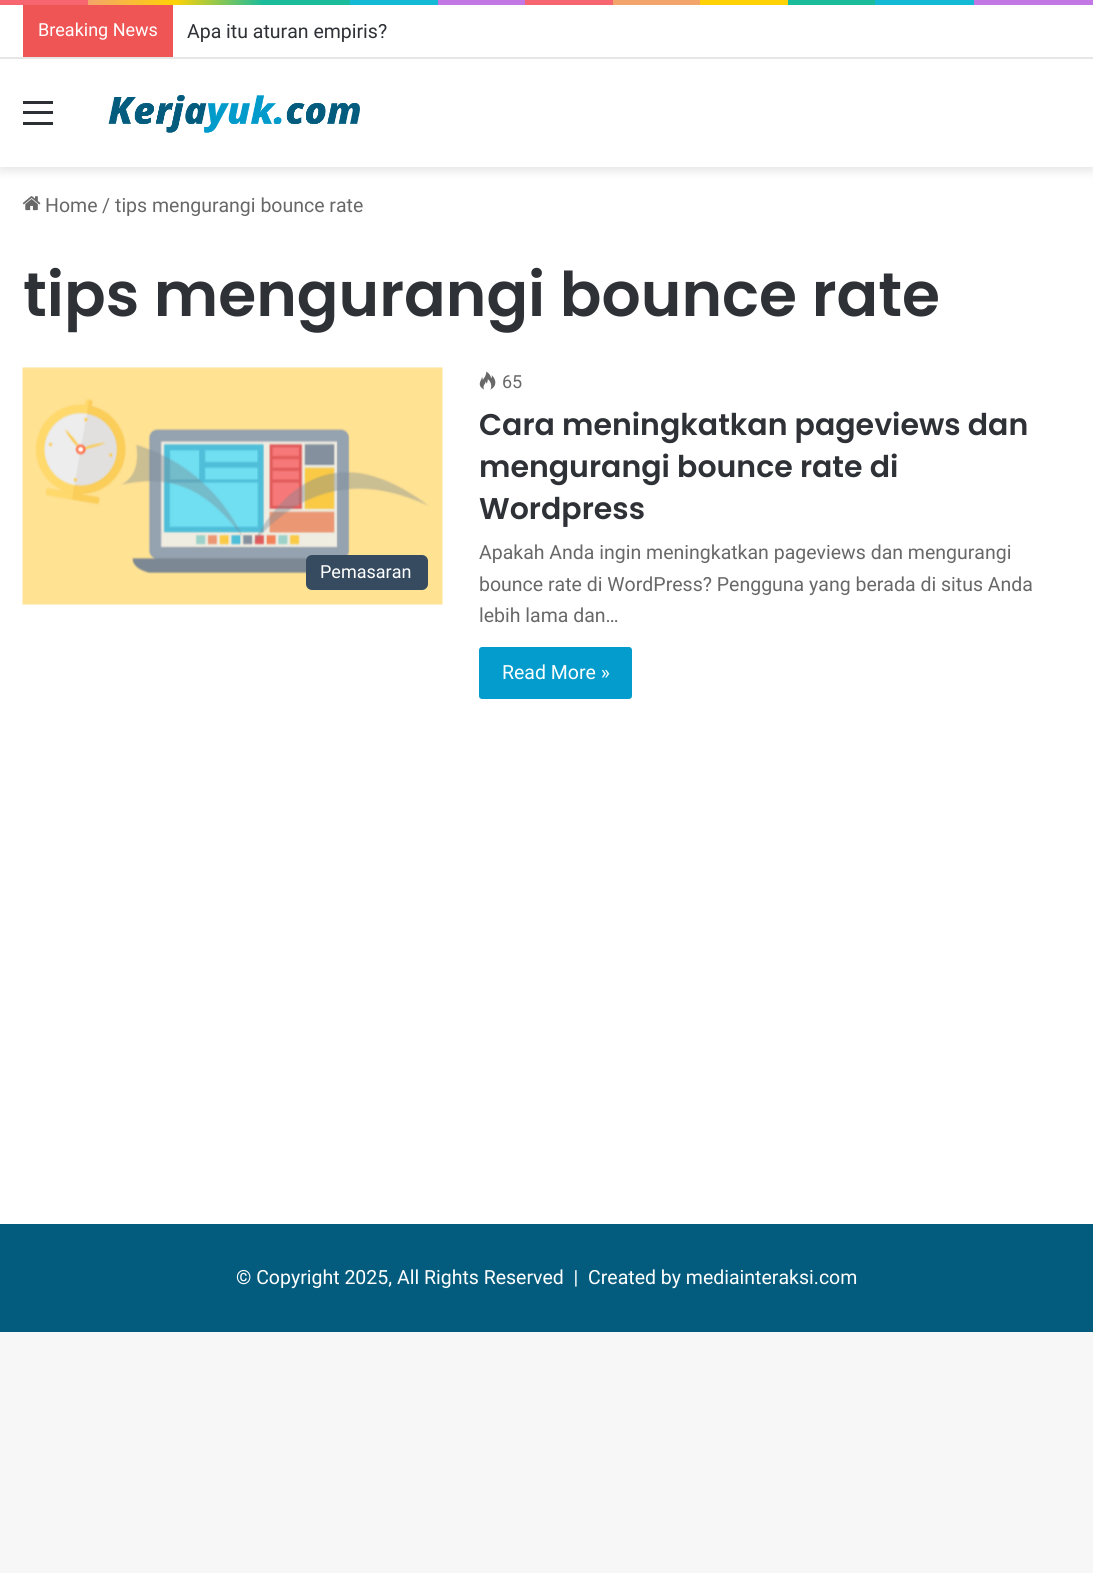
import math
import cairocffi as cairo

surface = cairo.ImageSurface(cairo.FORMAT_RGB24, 1093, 1573)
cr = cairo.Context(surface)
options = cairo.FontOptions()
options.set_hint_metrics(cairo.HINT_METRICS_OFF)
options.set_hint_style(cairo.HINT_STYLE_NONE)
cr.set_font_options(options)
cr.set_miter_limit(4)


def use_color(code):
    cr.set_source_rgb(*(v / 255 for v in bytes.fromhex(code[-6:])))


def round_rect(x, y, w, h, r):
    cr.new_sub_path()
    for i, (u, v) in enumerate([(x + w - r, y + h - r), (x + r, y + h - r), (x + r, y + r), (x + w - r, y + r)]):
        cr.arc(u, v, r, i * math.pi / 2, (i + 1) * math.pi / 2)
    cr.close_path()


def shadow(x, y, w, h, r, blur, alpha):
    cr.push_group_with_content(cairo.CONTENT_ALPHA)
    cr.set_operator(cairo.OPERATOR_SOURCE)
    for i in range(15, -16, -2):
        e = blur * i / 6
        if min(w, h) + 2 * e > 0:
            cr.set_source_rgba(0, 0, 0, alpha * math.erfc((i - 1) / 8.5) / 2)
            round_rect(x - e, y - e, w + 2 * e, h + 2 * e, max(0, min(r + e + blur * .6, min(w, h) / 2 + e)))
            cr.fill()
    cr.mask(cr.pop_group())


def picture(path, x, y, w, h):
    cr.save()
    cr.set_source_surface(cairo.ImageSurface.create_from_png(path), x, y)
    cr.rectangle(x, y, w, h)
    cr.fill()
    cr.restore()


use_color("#f7f7f7")
cr.paint()
use_color("#ffffff")
cr.rectangle(0, 167, 1093, 1057)
cr.fill()
gradient = cairo.LinearGradient(0, 2.3, 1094, 2.2)
gradient.add_color_stop_rgba(0, 0.969, 0.396, 0.439, 1)
gradient.add_color_stop_rgba(0.08, 0.969, 0.396, 0.439, 1)
gradient.add_color_stop_rgba(0.08, 0.953, 0.643, 0.42, 1)
gradient.add_color_stop_rgba(0.16, 1, 0.824, 0.02, 1)
gradient.add_color_stop_rgba(0.24, 0.106, 0.737, 0.608, 1)
gradient.add_color_stop_rgba(0.32, 0.106, 0.737, 0.608, 1)
gradient.add_color_stop_rgba(0.32, 0.078, 0.725, 0.835, 1)
gradient.add_color_stop_rgba(0.4, 0.078, 0.725, 0.835, 1)
gradient.add_color_stop_rgba(0.4, 0.765, 0.467, 0.894, 1)
gradient.add_color_stop_rgba(0.48, 0.765, 0.467, 0.894, 1)
gradient.add_color_stop_rgba(0.48, 0.969, 0.396, 0.439, 1)
gradient.add_color_stop_rgba(0.56, 0.969, 0.396, 0.439, 1)
gradient.add_color_stop_rgba(0.56, 0.953, 0.643, 0.42, 1)
gradient.add_color_stop_rgba(0.64, 0.953, 0.643, 0.42, 1)
gradient.add_color_stop_rgba(0.64, 1, 0.824, 0.02, 1)
gradient.add_color_stop_rgba(0.72, 1, 0.824, 0.02, 1)
gradient.add_color_stop_rgba(0.72, 0.106, 0.737, 0.608, 1)
gradient.add_color_stop_rgba(0.8, 0.106, 0.737, 0.608, 1)
gradient.add_color_stop_rgba(0.8, 0.078, 0.725, 0.835, 1)
gradient.add_color_stop_rgba(0.89, 0.078, 0.725, 0.835, 1)
gradient.add_color_stop_rgba(0.89, 0.765, 0.467, 0.894, 1)
gradient.add_color_stop_rgba(1, 0.765, 0.467, 0.894, 1)
cr.set_source(gradient)
cr.rectangle(0, 0, 1093, 5)
cr.fill()
use_color("#000000")
shadow(0, 63, 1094, 108, 0, 5, 0.1)
use_color("#ffffff")
cr.rectangle(0, 5, 1093, 52)
cr.fill()
use_color("#e6e6e6")
cr.rectangle(0, 57, 1093, 2)
cr.fill()
use_color("#f05555")
cr.rectangle(23, 5, 150, 52)
cr.fill()
cr.select_font_face("Roboto")
cr.set_font_size(18)
use_color("#ffffff")
cr.move_to(38, 36)
cr.show_text("Breaking News")
cr.set_font_size(19.5)
use_color("#2e3136")
cr.move_to(187, 38)
cr.show_text("Apa itu aturan empiris?")
use_color("#ffffff")
cr.rectangle(0, 59, 1093, 108)
cr.fill()
use_color("#2c2f34")
cr.rectangle(23, 111, 30, 3)
cr.fill()
cr.rectangle(23, 101, 30, 3)
cr.fill()
cr.rectangle(23, 122, 30, 3)
cr.fill()
picture("img1.png", 108, 95, 252, 38)
picture("img2.png", 22, 196, 19, 15)
use_color("#686868")
cr.move_to(45, 212)
cr.show_text("Home")
cr.move_to(102, 212)
cr.show_text("/")
cr.move_to(115, 212)
cr.show_text("tips mengurangi bounce rate")
cr.select_font_face("Poppins SemiBold")
cr.set_font_size(61.5)
use_color("#2e3136")
cr.move_to(23, 316)
cr.show_text("tips mengurangi bounce rate")
picture("img3.png", 22, 367, 421, 238)
use_color("#364b60")
round_rect(306, 555, 122, 35, 6)
cr.fill()
cr.select_font_face("Roboto")
cr.set_font_size(18)
use_color("#ffffff")
cr.move_to(320, 578)
cr.show_text("Pemasaran")
picture("img4.png", 479, 371, 17, 19)
use_color("#686868")
cr.move_to(502, 388)
cr.show_text("65")
cr.select_font_face("Poppins SemiBold")
cr.set_font_size(30)
use_color("#2e3136")
cr.move_to(479, 435)
cr.show_text("Cara meningkatkan pageviews dan")
cr.move_to(479, 477)
cr.show_text("mengurangi bounce rate di")
cr.move_to(479, 519)
cr.show_text("Wordpress")
cr.select_font_face("Roboto")
cr.set_font_size(19.5)
use_color("#686868")
cr.move_to(479, 559)
cr.show_text("Apakah Anda ingin meningkatkan pageviews dan mengurangi")
cr.move_to(479, 591)
cr.show_text("bounce rate di WordPress? Pengguna yang berada di situs Anda")
cr.move_to(479, 622)
cr.show_text("lebih lama dan…")
use_color("#039ccc")
round_rect(479, 647, 153, 52, 3)
cr.fill()
use_color("#ffffff")
cr.move_to(502, 679)
cr.show_text("Read More »")
use_color("#035c7e")
cr.rectangle(0, 1224, 1093, 108)
cr.fill()
use_color("#ffffff")
cr.move_to(236, 1284)
cr.show_text("© Copyright 2025, All Rights Reserved  |")
cr.move_to(588, 1284)
cr.show_text("Created by mediainteraksi.com")
surface.write_to_png("result.png")
